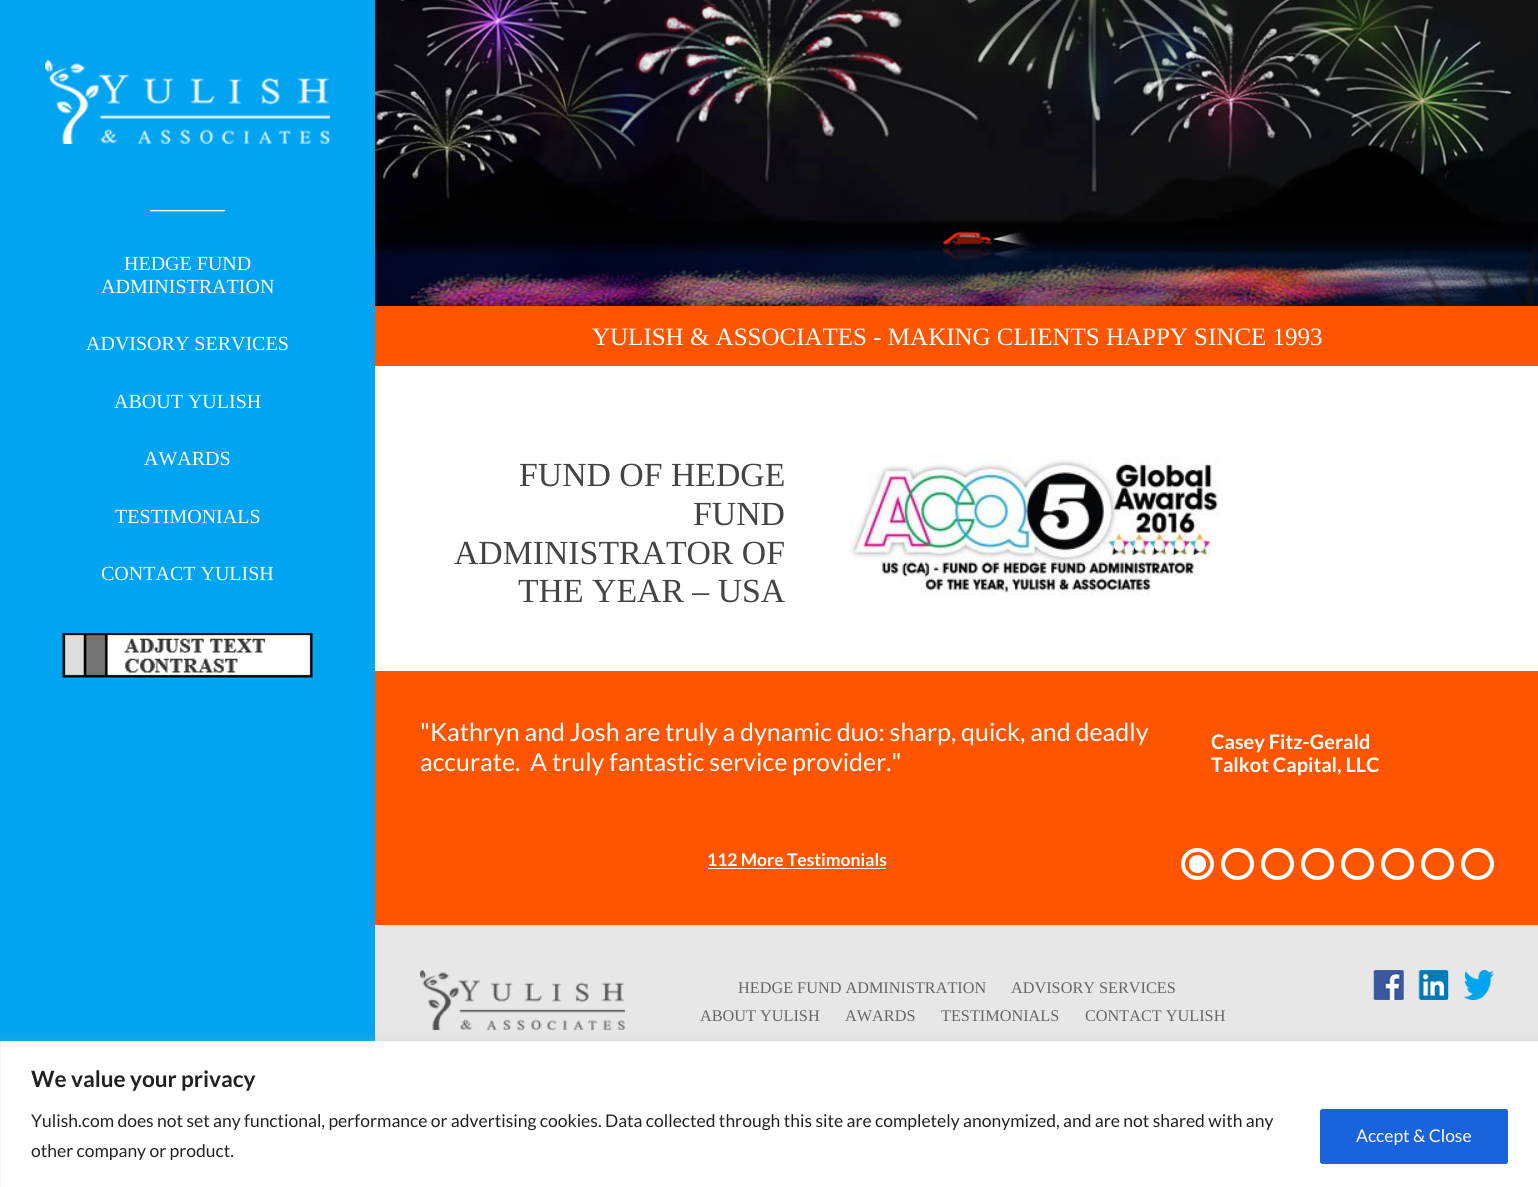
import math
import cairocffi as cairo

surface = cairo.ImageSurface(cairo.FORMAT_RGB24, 1538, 1187)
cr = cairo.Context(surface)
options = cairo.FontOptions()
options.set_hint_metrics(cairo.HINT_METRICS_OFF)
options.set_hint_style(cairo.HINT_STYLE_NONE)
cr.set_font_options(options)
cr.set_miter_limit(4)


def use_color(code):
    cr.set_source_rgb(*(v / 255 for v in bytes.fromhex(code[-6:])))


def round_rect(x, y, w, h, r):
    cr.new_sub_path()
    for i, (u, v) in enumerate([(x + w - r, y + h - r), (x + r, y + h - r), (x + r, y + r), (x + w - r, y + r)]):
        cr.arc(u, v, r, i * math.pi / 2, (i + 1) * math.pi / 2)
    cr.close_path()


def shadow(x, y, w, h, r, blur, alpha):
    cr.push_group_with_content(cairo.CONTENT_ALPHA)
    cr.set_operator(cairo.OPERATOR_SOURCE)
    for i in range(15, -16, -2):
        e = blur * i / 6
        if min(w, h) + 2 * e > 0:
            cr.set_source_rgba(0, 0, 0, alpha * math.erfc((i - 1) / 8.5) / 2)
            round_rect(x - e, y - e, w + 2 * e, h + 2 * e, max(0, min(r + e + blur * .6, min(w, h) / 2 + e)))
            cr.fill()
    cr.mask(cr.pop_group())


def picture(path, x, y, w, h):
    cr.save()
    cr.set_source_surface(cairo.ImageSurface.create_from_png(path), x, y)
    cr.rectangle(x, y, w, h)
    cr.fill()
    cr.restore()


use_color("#00a4f0")
cr.paint()
picture("img1.png", 45, 60, 285, 84)
picture("img2.png", 149, 210, 77, 2)
cr.select_font_face("Liberation Serif")
cr.set_font_size(20)
use_color("#ffffff")
cr.move_to(124, 270)
cr.show_text("HEDGE FUND")
cr.move_to(101, 293)
cr.show_text("ADMINISTRATION")
cr.move_to(86, 350)
cr.show_text("ADVISORY SERVICES")
cr.move_to(114, 408)
cr.show_text("ABOUT YULISH")
cr.move_to(144, 465)
cr.show_text("AWARDS")
cr.move_to(115, 523)
cr.show_text("TESTIMONIALS")
cr.move_to(101, 580)
cr.show_text("CONTACT YULISH")
picture("img3.png", 62, 633, 251, 45)
cr.rectangle(375, 366, 1163, 305)
cr.fill()
picture("img4.png", 375, 0, 1163, 306)
use_color("#ff5500")
cr.rectangle(375, 306, 1163, 60)
cr.fill()
cr.set_font_size(25)
use_color("#ffffff")
cr.move_to(592, 345)
cr.show_text("YULISH & ASSOCIATES - MAKING CLIENTS HAPPY SINCE 1993")
cr.set_font_size(33.75)
use_color("#444444")
cr.move_to(519, 486)
cr.show_text("FUND OF HEDGE")
cr.move_to(693, 525)
cr.show_text("FUND")
cr.move_to(454, 564)
cr.show_text("ADMINISTRATOR OF")
cr.move_to(518, 602)
cr.show_text("THE YEAR – USA")
picture("img5.png", 850, 456, 370, 140)
use_color("#ff5500")
cr.rectangle(375, 671, 1163, 254)
cr.fill()
cr.select_font_face("Lato")
cr.set_font_size(25)
use_color("#ffffff")
cr.move_to(420, 741)
cr.show_text("\"Kathryn and Josh are truly a dynamic duo: sharp, quick, and deadly")
cr.move_to(420, 771)
cr.show_text("accurate.  A truly fantastic service provider.\"")
cr.select_font_face("Lato", cairo.FONT_SLANT_NORMAL, cairo.FONT_WEIGHT_BOLD)
cr.set_font_size(20)
cr.move_to(1211, 749)
cr.show_text("Casey Fitz-Gerald")
cr.move_to(1211, 772)
cr.show_text("Talkot Capital, LLC")
cr.set_font_size(17.5)
cr.move_to(707, 866)
cr.show_text("112 More Testimonials")
cr.rectangle(708, 868, 178, 1)
cr.fill()
round_rect(1183, 850, 29, 28, 14)
cr.set_line_width(4)
cr.stroke()
round_rect(1189, 855, 17, 18, 8.5)
cr.fill()
round_rect(1223, 850, 29, 28, 14)
cr.stroke()
round_rect(1263, 850, 29, 28, 14)
cr.stroke()
round_rect(1303, 850, 29, 28, 14)
cr.stroke()
round_rect(1343, 850, 29, 28, 14)
cr.stroke()
round_rect(1383, 850, 29, 28, 14)
cr.stroke()
round_rect(1423, 850, 29, 28, 14)
cr.stroke()
round_rect(1463, 850, 29, 28, 14)
cr.stroke()
use_color("#e7e7e7")
cr.rectangle(375, 925, 1163, 116)
cr.fill()
picture("img6.png", 420, 970, 205, 60)
cr.select_font_face("Liberation Serif")
cr.set_font_size(16.25)
use_color("#666666")
cr.move_to(738, 993)
cr.show_text("HEDGE FUND ADMINISTRATION")
cr.move_to(1011, 993)
cr.show_text("ADVISORY SERVICES")
cr.move_to(700, 1021)
cr.show_text("ABOUT YULISH")
cr.move_to(845, 1021)
cr.show_text("AWARDS")
cr.move_to(941, 1021)
cr.show_text("TESTIMONIALS")
cr.move_to(1085, 1021)
cr.show_text("CONTACT YULISH")
picture("img7.png", 1373, 970, 31, 30)
picture("img8.png", 1418, 970, 31, 30)
picture("img9.png", 1463, 970, 31, 30)
use_color("#acabab")
shadow(0, 1040, 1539, 146, 0, 6, 0.3)
use_color("#ffffff")
cr.rectangle(0.5, 1041.5, 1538, 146)
cr.fill_preserve()
use_color("#f4f4f4")
cr.set_line_width(1)
cr.stroke()
cr.select_font_face("Lato", cairo.FONT_SLANT_NORMAL, cairo.FONT_WEIGHT_BOLD)
cr.set_font_size(22.5)
use_color("#212121")
cr.move_to(31, 1087)
cr.show_text("We value your privacy")
cr.select_font_face("Lato")
cr.set_font_size(17.5)
cr.move_to(31, 1127)
cr.show_text("Yulish.com does not set any functional, performance or advertising cookies. Data collected through this site are completely anonymized, and are not shared with any")
cr.move_to(31, 1157)
cr.show_text("other company or product.")
use_color("#1863dc")
round_rect(1321.5, 1110.5, 185, 52, 1)
cr.fill_preserve()
cr.set_line_width(3)
cr.stroke()
use_color("#ffffff")
cr.move_to(1356, 1142)
cr.show_text("Accept & Close")
surface.write_to_png("result.png")
